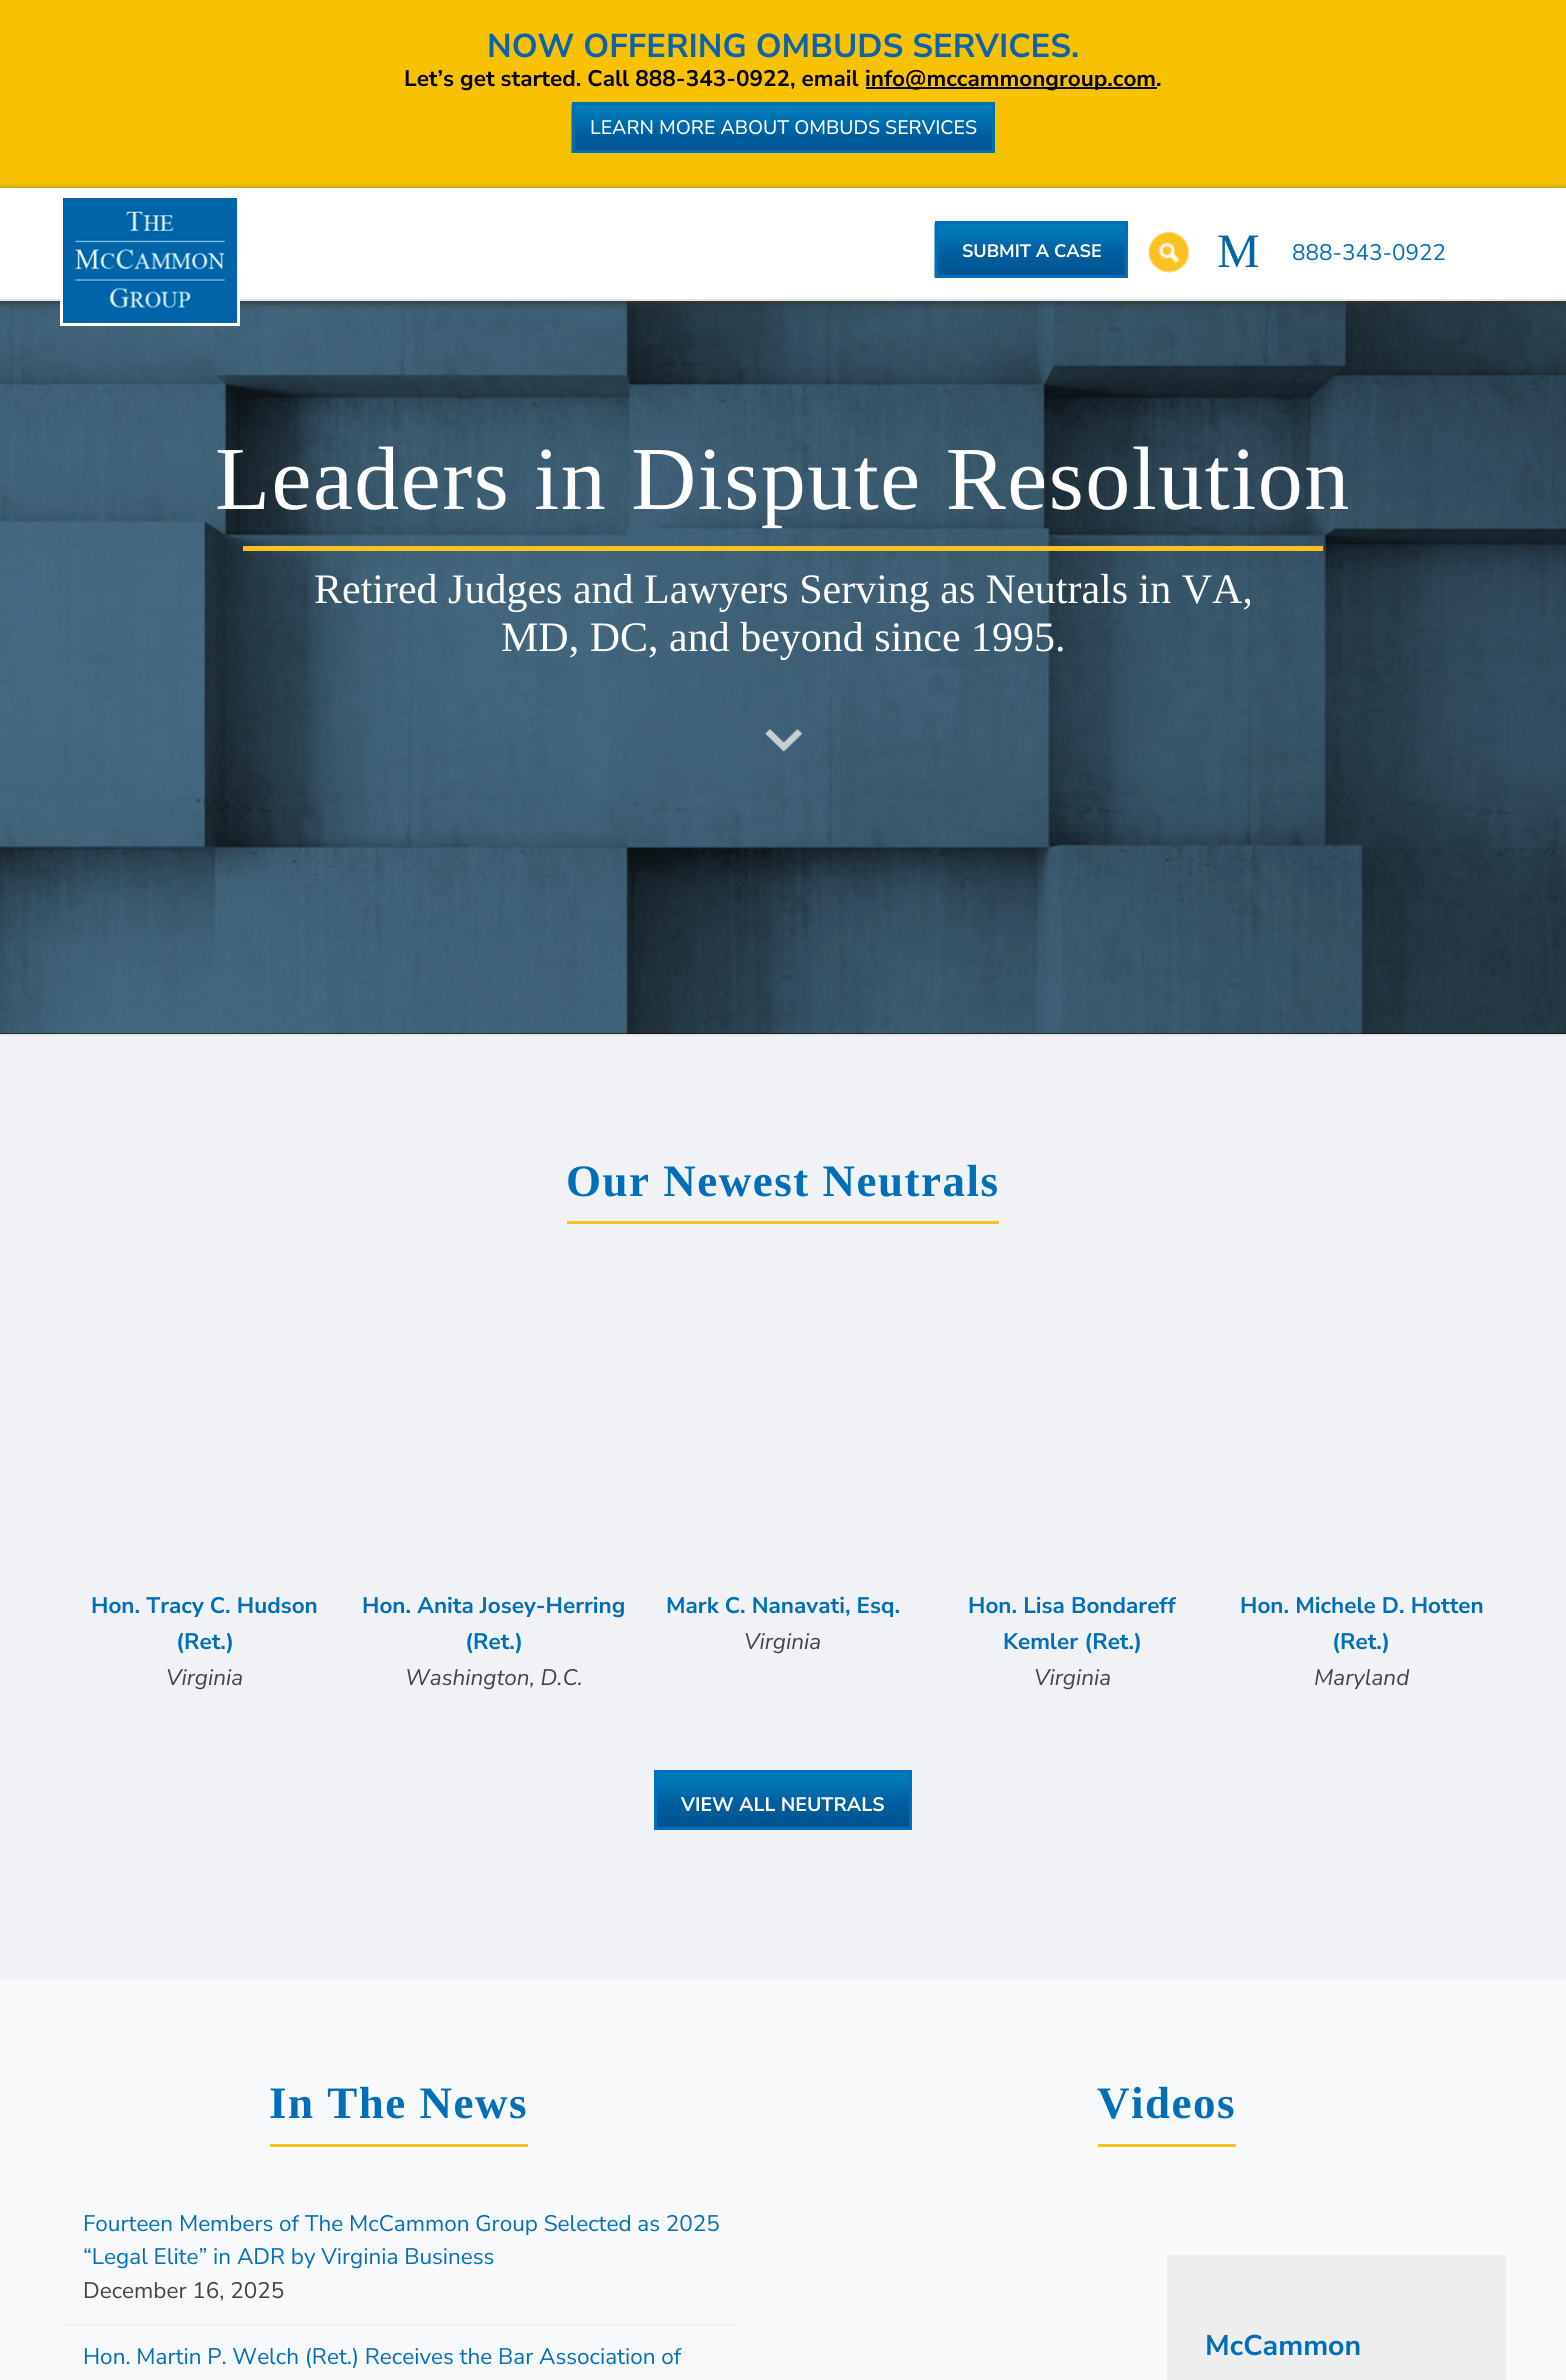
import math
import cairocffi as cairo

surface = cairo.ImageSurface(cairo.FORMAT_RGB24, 1566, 2380)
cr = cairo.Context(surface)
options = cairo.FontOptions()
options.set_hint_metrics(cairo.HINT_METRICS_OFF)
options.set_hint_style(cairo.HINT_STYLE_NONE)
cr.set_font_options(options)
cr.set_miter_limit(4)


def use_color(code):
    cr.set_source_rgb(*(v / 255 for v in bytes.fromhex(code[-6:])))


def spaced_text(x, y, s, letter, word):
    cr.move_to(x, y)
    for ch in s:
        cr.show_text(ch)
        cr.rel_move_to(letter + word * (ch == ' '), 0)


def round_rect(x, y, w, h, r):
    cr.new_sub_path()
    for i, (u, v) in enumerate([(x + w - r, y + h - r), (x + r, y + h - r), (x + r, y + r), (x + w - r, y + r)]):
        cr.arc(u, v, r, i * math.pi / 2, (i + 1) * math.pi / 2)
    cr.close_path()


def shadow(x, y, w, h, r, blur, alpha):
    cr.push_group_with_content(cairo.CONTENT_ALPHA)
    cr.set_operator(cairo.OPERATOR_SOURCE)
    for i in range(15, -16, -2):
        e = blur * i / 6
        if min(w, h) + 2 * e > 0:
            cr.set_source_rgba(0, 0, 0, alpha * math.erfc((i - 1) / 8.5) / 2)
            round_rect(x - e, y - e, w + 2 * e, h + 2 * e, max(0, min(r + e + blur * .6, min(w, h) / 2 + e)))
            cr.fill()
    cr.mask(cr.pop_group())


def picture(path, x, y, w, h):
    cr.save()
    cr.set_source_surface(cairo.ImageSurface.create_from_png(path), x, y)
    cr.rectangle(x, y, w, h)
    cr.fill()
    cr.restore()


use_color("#f9c200")
cr.paint()
cr.select_font_face("Nunito Sans", cairo.FONT_SLANT_NORMAL, cairo.FONT_WEIGHT_BOLD)
cr.set_font_size(33)
use_color("#0b63ae")
cr.move_to(487, 57)
cr.show_text("NOW OFFERING OMBUDS SERVICES.")
cr.set_font_size(22.5)
use_color("#000000")
cr.move_to(404, 86)
cr.show_text("Let’s get started. Call 888-343-0922, email")
cr.rectangle(866, 87, 291, 2)
cr.fill()
cr.move_to(865, 86)
cr.show_text("info@mccammongroup.com.")
picture("img1.png", 571, 105, 421, 48)
cr.rectangle(573.5, 103.5, 420, 48)
use_color("#006eb8")
cr.set_line_width(3)
cr.stroke()
cr.select_font_face("Nunito Sans Medium")
cr.set_font_size(19.5)
use_color("#ffffff")
cr.move_to(590, 134)
cr.show_text("LEARN MORE ABOUT OMBUDS SERVICES")
use_color("#000000")
cr.rectangle(0, 1033, 1566, 1)
cr.fill()
picture("img5.png", 0, 301, 1566, 733)
cr.set_source_rgba(0, 0, 0, 0.25)
cr.rectangle(0, 301, 1566, 733)
cr.fill()
use_color("#333333")
shadow(0, 191, 1566, 112, 0, 4, 1)
use_color("#ffffff")
cr.rectangle(0, 188, 1566, 111)
cr.fill()
use_color("#e6e6e6")
cr.rectangle(0, 299, 1566, 2)
cr.fill()
cr.rectangle(61.5, 196.5, 177, 128)
use_color("#ffffff")
cr.stroke()
picture("img2.png", 63, 198, 174, 125)
picture("img3.png", 934, 223, 191, 55)
cr.rectangle(936.5, 222.5, 190, 54)
use_color("#006eb8")
cr.stroke()
cr.select_font_face("Nunito Sans", cairo.FONT_SLANT_NORMAL, cairo.FONT_WEIGHT_BOLD)
cr.set_font_size(18)
use_color("#ffffff")
cr.move_to(962, 257)
cr.show_text("SUBMIT A CASE")
picture("img4.png", 1148, 231, 42, 42)
cr.select_font_face("Liberation Serif")
cr.set_font_size(48)
use_color("#0064a9")
cr.move_to(1217, 267)
cr.show_text("M")
cr.select_font_face("Nunito Sans")
cr.set_font_size(22.5)
use_color("#006eb8")
cr.move_to(1292, 260)
cr.show_text("888-343-0922")
use_color("#e6e6e6")
cr.rectangle(0, 1034, 1566, 2)
cr.fill()
cr.select_font_face("Liberation Serif")
cr.set_font_size(90)
use_color("#ffffff")
spaced_text(215, 509, "Leaders in Dispute Resolution", 1.5, 0)
use_color("#fbc120")
cr.rectangle(243, 546, 1080, 5)
cr.fill()
cr.set_font_size(42)
use_color("#ffffff")
cr.move_to(314, 603)
cr.show_text("Retired Judges and Lawyers Serving as Neutrals in VA,")
cr.move_to(501, 651)
cr.show_text("MD, DC, and beyond since 1995.")
picture("img6.png", 765, 729, 38, 23)
use_color("#f1f2f5")
cr.rectangle(0, 1036, 1566, 944)
cr.fill()
use_color("#fbc120")
cr.rectangle(567, 1221, 432, 3)
cr.fill()
cr.select_font_face("Liberation Serif", cairo.FONT_SLANT_NORMAL, cairo.FONT_WEIGHT_BOLD)
cr.set_font_size(45)
use_color("#006eb8")
spaced_text(566, 1196, "Our Newest Neutrals", 1.5, 0)
cr.select_font_face("Nunito Sans", cairo.FONT_SLANT_NORMAL, cairo.FONT_WEIGHT_BOLD)
cr.set_font_size(22.5)
cr.move_to(91, 1613)
cr.show_text("Hon. Tracy C. Hudson")
cr.move_to(176, 1649)
cr.show_text("(Ret.)")
cr.select_font_face("Nunito Sans", cairo.FONT_SLANT_ITALIC)
use_color("#444444")
cr.move_to(166, 1685)
cr.show_text("Virginia")
cr.select_font_face("Nunito Sans", cairo.FONT_SLANT_NORMAL, cairo.FONT_WEIGHT_BOLD)
use_color("#006eb8")
cr.move_to(362, 1613)
cr.show_text("Hon. Anita Josey-Herring")
cr.move_to(465, 1649)
cr.show_text("(Ret.)")
cr.select_font_face("Nunito Sans", cairo.FONT_SLANT_ITALIC)
use_color("#444444")
cr.move_to(405, 1685)
cr.show_text("Washington, D.C.")
cr.select_font_face("Nunito Sans", cairo.FONT_SLANT_NORMAL, cairo.FONT_WEIGHT_BOLD)
use_color("#006eb8")
cr.move_to(666, 1613)
cr.show_text("Mark C. Nanavati, Esq.")
cr.select_font_face("Nunito Sans", cairo.FONT_SLANT_ITALIC)
use_color("#444444")
cr.move_to(744, 1649)
cr.show_text("Virginia")
cr.select_font_face("Nunito Sans", cairo.FONT_SLANT_NORMAL, cairo.FONT_WEIGHT_BOLD)
use_color("#006eb8")
cr.move_to(968, 1613)
cr.show_text("Hon. Lisa Bondareff")
cr.move_to(1003, 1649)
cr.show_text("Kemler (Ret.)")
cr.select_font_face("Nunito Sans", cairo.FONT_SLANT_ITALIC)
use_color("#444444")
cr.move_to(1034, 1685)
cr.show_text("Virginia")
cr.select_font_face("Nunito Sans", cairo.FONT_SLANT_NORMAL, cairo.FONT_WEIGHT_BOLD)
use_color("#006eb8")
cr.move_to(1240, 1613)
cr.show_text("Hon. Michele D. Hotten")
cr.move_to(1332, 1649)
cr.show_text("(Ret.)")
cr.select_font_face("Nunito Sans", cairo.FONT_SLANT_ITALIC)
use_color("#444444")
cr.move_to(1314, 1685)
cr.show_text("Maryland")
picture("img7.png", 657, 1773, 252, 54)
cr.rectangle(655.5, 1771.5, 255, 57)
use_color("#006eb8")
cr.stroke()
cr.select_font_face("Nunito Sans", cairo.FONT_SLANT_NORMAL, cairo.FONT_WEIGHT_BOLD)
cr.set_font_size(19.5)
use_color("#ffffff")
cr.move_to(681, 1811)
cr.show_text("VIEW ALL NEUTRALS")
use_color("#f7f9fb")
cr.rectangle(0, 1980, 1566, 400)
cr.fill()
use_color("#fbc120")
cr.rectangle(270, 2144, 258, 3)
cr.fill()
cr.select_font_face("Liberation Serif", cairo.FONT_SLANT_NORMAL, cairo.FONT_WEIGHT_BOLD)
cr.set_font_size(45)
use_color("#006eb8")
spaced_text(269, 2118, "In The News", 1.5, 0)
use_color("#eff3f6")
cr.rectangle(60, 2324, 678, 2)
cr.fill()
cr.select_font_face("Nunito Sans")
cr.set_font_size(22.5)
use_color("#006eb8")
cr.move_to(83, 2231)
cr.show_text("Fourteen Members of The McCammon Group Selected as 2025")
cr.move_to(83, 2264)
cr.show_text("“Legal Elite” in ADR by Virginia Business")
use_color("#444444")
cr.move_to(83, 2298)
cr.show_text("December 16, 2025")
use_color("#006eb8")
cr.move_to(83, 2364)
cr.show_text("Hon. Martin P. Welch (Ret.) Receives the Bar Association of")
use_color("#fbc120")
cr.rectangle(1098, 2144, 138, 3)
cr.fill()
cr.select_font_face("Liberation Serif", cairo.FONT_SLANT_NORMAL, cairo.FONT_WEIGHT_BOLD)
cr.set_font_size(45)
use_color("#006eb8")
spaced_text(1097, 2118, "Videos", 1.5, 0)
use_color("#eeeeee")
cr.rectangle(1167, 2255, 339, 125)
cr.fill()
cr.select_font_face("Nunito Sans", cairo.FONT_SLANT_NORMAL, cairo.FONT_WEIGHT_BOLD)
cr.set_font_size(28.5)
use_color("#006eb8")
cr.move_to(1205, 2355)
cr.show_text("McCammon")
surface.write_to_png("result.png")
